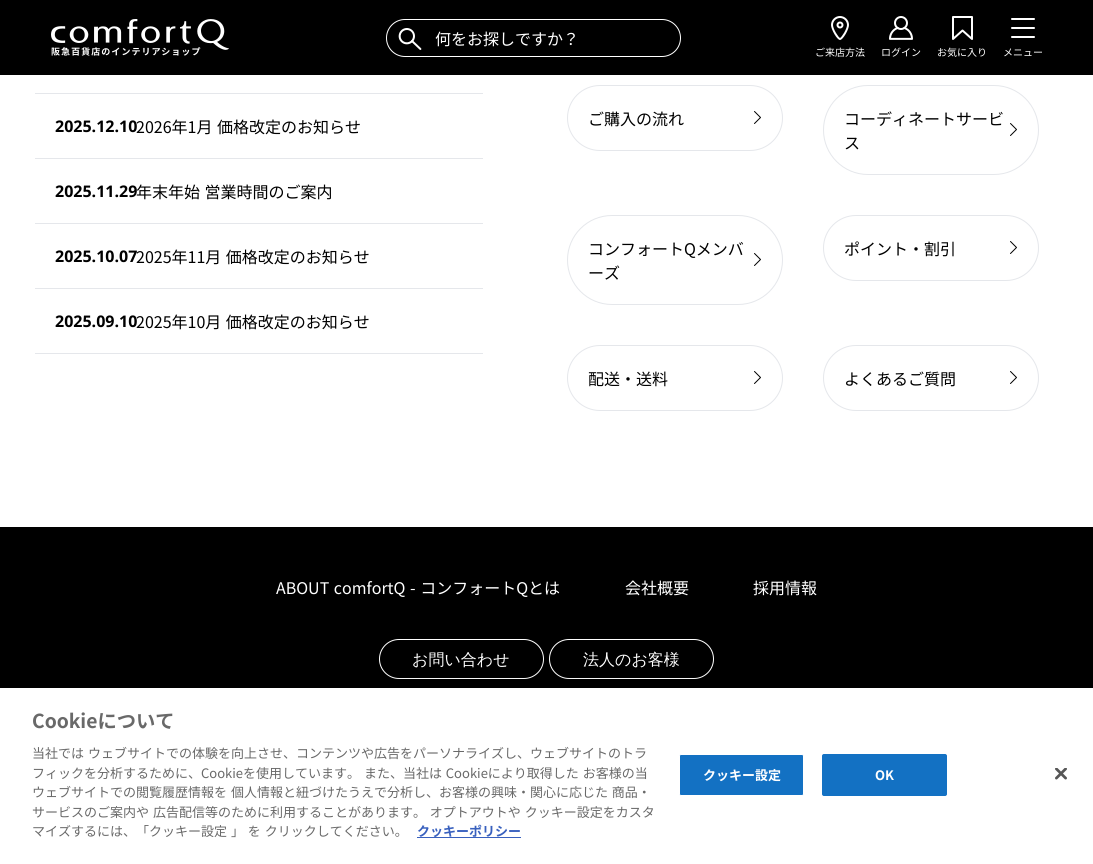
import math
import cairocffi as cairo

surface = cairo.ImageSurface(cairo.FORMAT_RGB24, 1093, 864)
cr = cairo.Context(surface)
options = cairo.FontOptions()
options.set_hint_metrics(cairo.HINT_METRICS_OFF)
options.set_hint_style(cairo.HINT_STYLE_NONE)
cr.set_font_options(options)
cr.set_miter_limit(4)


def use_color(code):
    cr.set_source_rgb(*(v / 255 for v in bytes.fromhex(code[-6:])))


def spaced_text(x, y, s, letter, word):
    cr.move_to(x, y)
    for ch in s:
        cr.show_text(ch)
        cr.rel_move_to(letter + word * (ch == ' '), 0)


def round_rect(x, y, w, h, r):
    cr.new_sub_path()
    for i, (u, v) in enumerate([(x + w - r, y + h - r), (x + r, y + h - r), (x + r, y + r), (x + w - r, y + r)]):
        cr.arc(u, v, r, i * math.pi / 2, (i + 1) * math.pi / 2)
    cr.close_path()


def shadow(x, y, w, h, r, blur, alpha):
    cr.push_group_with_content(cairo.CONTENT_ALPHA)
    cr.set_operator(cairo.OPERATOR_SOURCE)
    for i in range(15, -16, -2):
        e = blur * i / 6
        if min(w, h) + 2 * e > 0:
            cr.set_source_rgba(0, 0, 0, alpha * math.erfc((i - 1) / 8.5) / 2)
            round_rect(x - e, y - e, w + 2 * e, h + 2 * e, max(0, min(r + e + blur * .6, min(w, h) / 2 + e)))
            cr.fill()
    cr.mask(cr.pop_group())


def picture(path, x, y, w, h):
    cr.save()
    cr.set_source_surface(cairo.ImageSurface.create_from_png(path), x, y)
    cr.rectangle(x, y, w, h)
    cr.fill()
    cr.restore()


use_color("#ffffff")
cr.paint()
use_color("#000000")
cr.rectangle(0, 0, 1093, 75)
cr.fill()
picture("img1.png", 51, 19, 178, 37)
round_rect(386.5, 19.5, 294, 37, 18.5)
use_color("#ffffff")
cr.set_line_width(1)
cr.stroke()
picture("img2.png", 398, 28, 24, 22)
cr.select_font_face("Noto Sans JP")
cr.set_font_size(16)
cr.move_to(435, 45)
cr.show_text("何をお探しですか？")
picture("img3.png", 831, 16, 18, 24)
cr.set_font_size(10)
cr.move_to(815, 56)
cr.show_text("ご来店方法")
picture("img4.png", 889, 16, 24, 24)
cr.move_to(881, 56)
cr.show_text("ログイン")
picture("img5.png", 952, 16, 21, 24)
cr.move_to(937, 56)
cr.show_text("お気に入り")
picture("img6.png", 1011, 18, 24, 20)
cr.move_to(1003, 56)
cr.show_text("メニュー")
use_color("#e5e7eb")
cr.rectangle(35, 93, 448, 1)
cr.fill()
cr.rectangle(35, 158, 448, 1)
cr.fill()
cr.select_font_face("Open Sans", cairo.FONT_SLANT_NORMAL, cairo.FONT_WEIGHT_BOLD)
cr.set_font_size(16)
use_color("#000000")
cr.move_to(55, 132)
cr.show_text("2025.12.10")
cr.select_font_face("Noto Sans JP")
spaced_text(136, 133, "2026年1月 価格改定のお知らせ", 0, 1)
use_color("#e5e7eb")
cr.rectangle(35, 223, 448, 1)
cr.fill()
cr.select_font_face("Open Sans", cairo.FONT_SLANT_NORMAL, cairo.FONT_WEIGHT_BOLD)
use_color("#000000")
cr.move_to(55, 197)
cr.show_text("2025.11.29")
cr.select_font_face("Noto Sans JP")
spaced_text(136, 198, "年末年始 営業時間のご案内", 0, 1)
use_color("#e5e7eb")
cr.rectangle(35, 288, 448, 1)
cr.fill()
cr.select_font_face("Open Sans", cairo.FONT_SLANT_NORMAL, cairo.FONT_WEIGHT_BOLD)
use_color("#000000")
cr.move_to(55, 262)
cr.show_text("2025.10.07")
cr.select_font_face("Noto Sans JP")
spaced_text(136, 263, "2025年11月 価格改定のお知らせ", 0, 1)
use_color("#e5e7eb")
cr.rectangle(35, 353, 448, 1)
cr.fill()
cr.select_font_face("Open Sans", cairo.FONT_SLANT_NORMAL, cairo.FONT_WEIGHT_BOLD)
use_color("#000000")
cr.move_to(55, 327)
cr.show_text("2025.09.10")
cr.select_font_face("Noto Sans JP")
spaced_text(136, 328, "2025年10月 価格改定のお知らせ", 0, 1)
round_rect(567.5, 85.5, 215, 65, 32.5)
use_color("#e5e7eb")
cr.stroke()
use_color("#000000")
cr.move_to(588, 125)
cr.show_text("ご購入の流れ")
cr.new_path()
cr.move_to(754.5, 111.5)
cr.line_to(760.5, 117.5)
cr.line_to(754.5, 123.5)
cr.set_line_cap(cairo.LINE_CAP_ROUND)
cr.set_line_join(cairo.LINE_JOIN_ROUND)
cr.stroke()
round_rect(823.5, 85.5, 215, 89, 44.5)
use_color("#e5e7eb")
cr.set_line_cap(cairo.LINE_CAP_BUTT)
cr.set_line_join(cairo.LINE_JOIN_MITER)
cr.stroke()
use_color("#000000")
cr.move_to(844, 125)
cr.show_text("コーディネートサービ")
cr.move_to(844, 149)
cr.show_text("ス")
cr.new_path()
cr.move_to(1010.5, 123.5)
cr.line_to(1016.5, 129.5)
cr.line_to(1010.5, 135.5)
cr.set_line_cap(cairo.LINE_CAP_ROUND)
cr.set_line_join(cairo.LINE_JOIN_ROUND)
cr.stroke()
round_rect(567.5, 215.5, 215, 89, 44.5)
use_color("#e5e7eb")
cr.set_line_cap(cairo.LINE_CAP_BUTT)
cr.set_line_join(cairo.LINE_JOIN_MITER)
cr.stroke()
use_color("#000000")
cr.move_to(588, 255)
cr.show_text("コンフォートQメンバ")
cr.move_to(588, 279)
cr.show_text("ーズ")
cr.new_path()
cr.move_to(754.5, 253.5)
cr.line_to(760.5, 259.5)
cr.line_to(754.5, 265.5)
cr.set_line_cap(cairo.LINE_CAP_ROUND)
cr.set_line_join(cairo.LINE_JOIN_ROUND)
cr.stroke()
round_rect(823.5, 215.5, 215, 65, 32.5)
use_color("#e5e7eb")
cr.set_line_cap(cairo.LINE_CAP_BUTT)
cr.set_line_join(cairo.LINE_JOIN_MITER)
cr.stroke()
use_color("#000000")
cr.move_to(844, 255)
cr.show_text("ポイント・割引")
cr.new_path()
cr.move_to(1010.5, 241.5)
cr.line_to(1016.5, 247.5)
cr.line_to(1010.5, 253.5)
cr.set_line_cap(cairo.LINE_CAP_ROUND)
cr.set_line_join(cairo.LINE_JOIN_ROUND)
cr.stroke()
round_rect(567.5, 345.5, 215, 65, 32.5)
use_color("#e5e7eb")
cr.set_line_cap(cairo.LINE_CAP_BUTT)
cr.set_line_join(cairo.LINE_JOIN_MITER)
cr.stroke()
use_color("#000000")
cr.move_to(588, 385)
cr.show_text("配送・送料")
cr.new_path()
cr.move_to(754.5, 371.5)
cr.line_to(760.5, 377.5)
cr.line_to(754.5, 383.5)
cr.set_line_cap(cairo.LINE_CAP_ROUND)
cr.set_line_join(cairo.LINE_JOIN_ROUND)
cr.stroke()
round_rect(823.5, 345.5, 215, 65, 32.5)
use_color("#e5e7eb")
cr.set_line_cap(cairo.LINE_CAP_BUTT)
cr.set_line_join(cairo.LINE_JOIN_MITER)
cr.stroke()
use_color("#000000")
cr.move_to(844, 385)
cr.show_text("よくあるご質問")
cr.new_path()
cr.move_to(1010.5, 371.5)
cr.line_to(1016.5, 377.5)
cr.line_to(1010.5, 383.5)
cr.set_line_cap(cairo.LINE_CAP_ROUND)
cr.set_line_join(cairo.LINE_JOIN_ROUND)
cr.stroke()
cr.rectangle(0, 527, 1093, 161)
cr.fill()
use_color("#ffffff")
spaced_text(276, 594, "ABOUT comfortQ - コンフォートQとは", 0, 1)
cr.move_to(625, 594)
cr.show_text("会社概要")
cr.move_to(753, 594)
cr.show_text("採用情報")
round_rect(379.5, 639.5, 164, 39, 19.5)
cr.set_line_cap(cairo.LINE_CAP_BUTT)
cr.set_line_join(cairo.LINE_JOIN_MITER)
cr.stroke()
cr.select_font_face("WenQuanYi Zen Hei Medium")
cr.move_to(412, 665)
cr.show_text("お問い合わせ")
round_rect(549.5, 639.5, 164, 39, 19.5)
cr.stroke()
cr.move_to(583, 665)
cr.show_text("法人のお客様")
use_color("#000000")
shadow(0, 688, 1093, 176, 0, 9, 0.2)
use_color("#ffffff")
cr.rectangle(0, 688, 1093, 176)
cr.fill()
cr.select_font_face("Noto Sans JP", cairo.FONT_SLANT_NORMAL, cairo.FONT_WEIGHT_BOLD)
cr.set_font_size(19.25)
use_color("#696969")
cr.move_to(32, 728)
cr.show_text("Cookieについて")
cr.select_font_face("Noto Sans JP")
cr.set_font_size(13)
spaced_text(32, 758, "当社では ウェブサイトでの体験を向上させ、コンテンツや広告をパーソナライズし、ウェブサイトのトラ", 0, 1)
spaced_text(32, 778, "フィックを分析するために、Cookieを使用しています。 また、当社は Cookieにより取得した お客様の当", 0, 1)
spaced_text(32, 797, "ウェブサイトでの閲覧履歴情報を 個人情報と紐づけたうえで分析し、お客様の興味・関心に応じた 商品・", 0, 1)
spaced_text(32, 817, "サービスのご案内や 広告配信等のために利用することがあります。 オプトアウトや クッキー設定をカスタ", 0, 1)
spaced_text(32, 836, "マイズするには、「クッキー設定 」 を クリックしてください。", 0, 1)
use_color("#3860be")
cr.rectangle(417, 837, 104, 1)
cr.fill()
cr.select_font_face("Noto Sans JP", cairo.FONT_SLANT_NORMAL, cairo.FONT_WEIGHT_BOLD)
cr.move_to(417, 836)
cr.show_text("クッキーポリシー")
use_color("#1371c3")
round_rect(679.5, 754.5, 124, 41, 1.5)
cr.fill_preserve()
use_color("#ffffff")
cr.stroke()
cr.move_to(703, 780)
cr.show_text("クッキー設定")
use_color("#1371c3")
round_rect(822.5, 754.5, 124, 41, 1.5)
cr.fill_preserve()
cr.stroke()
use_color("#ffffff")
cr.move_to(875, 780)
cr.show_text("OK")
picture("img7.png", 1055, 768, 12, 12)
surface.write_to_png("result.png")
